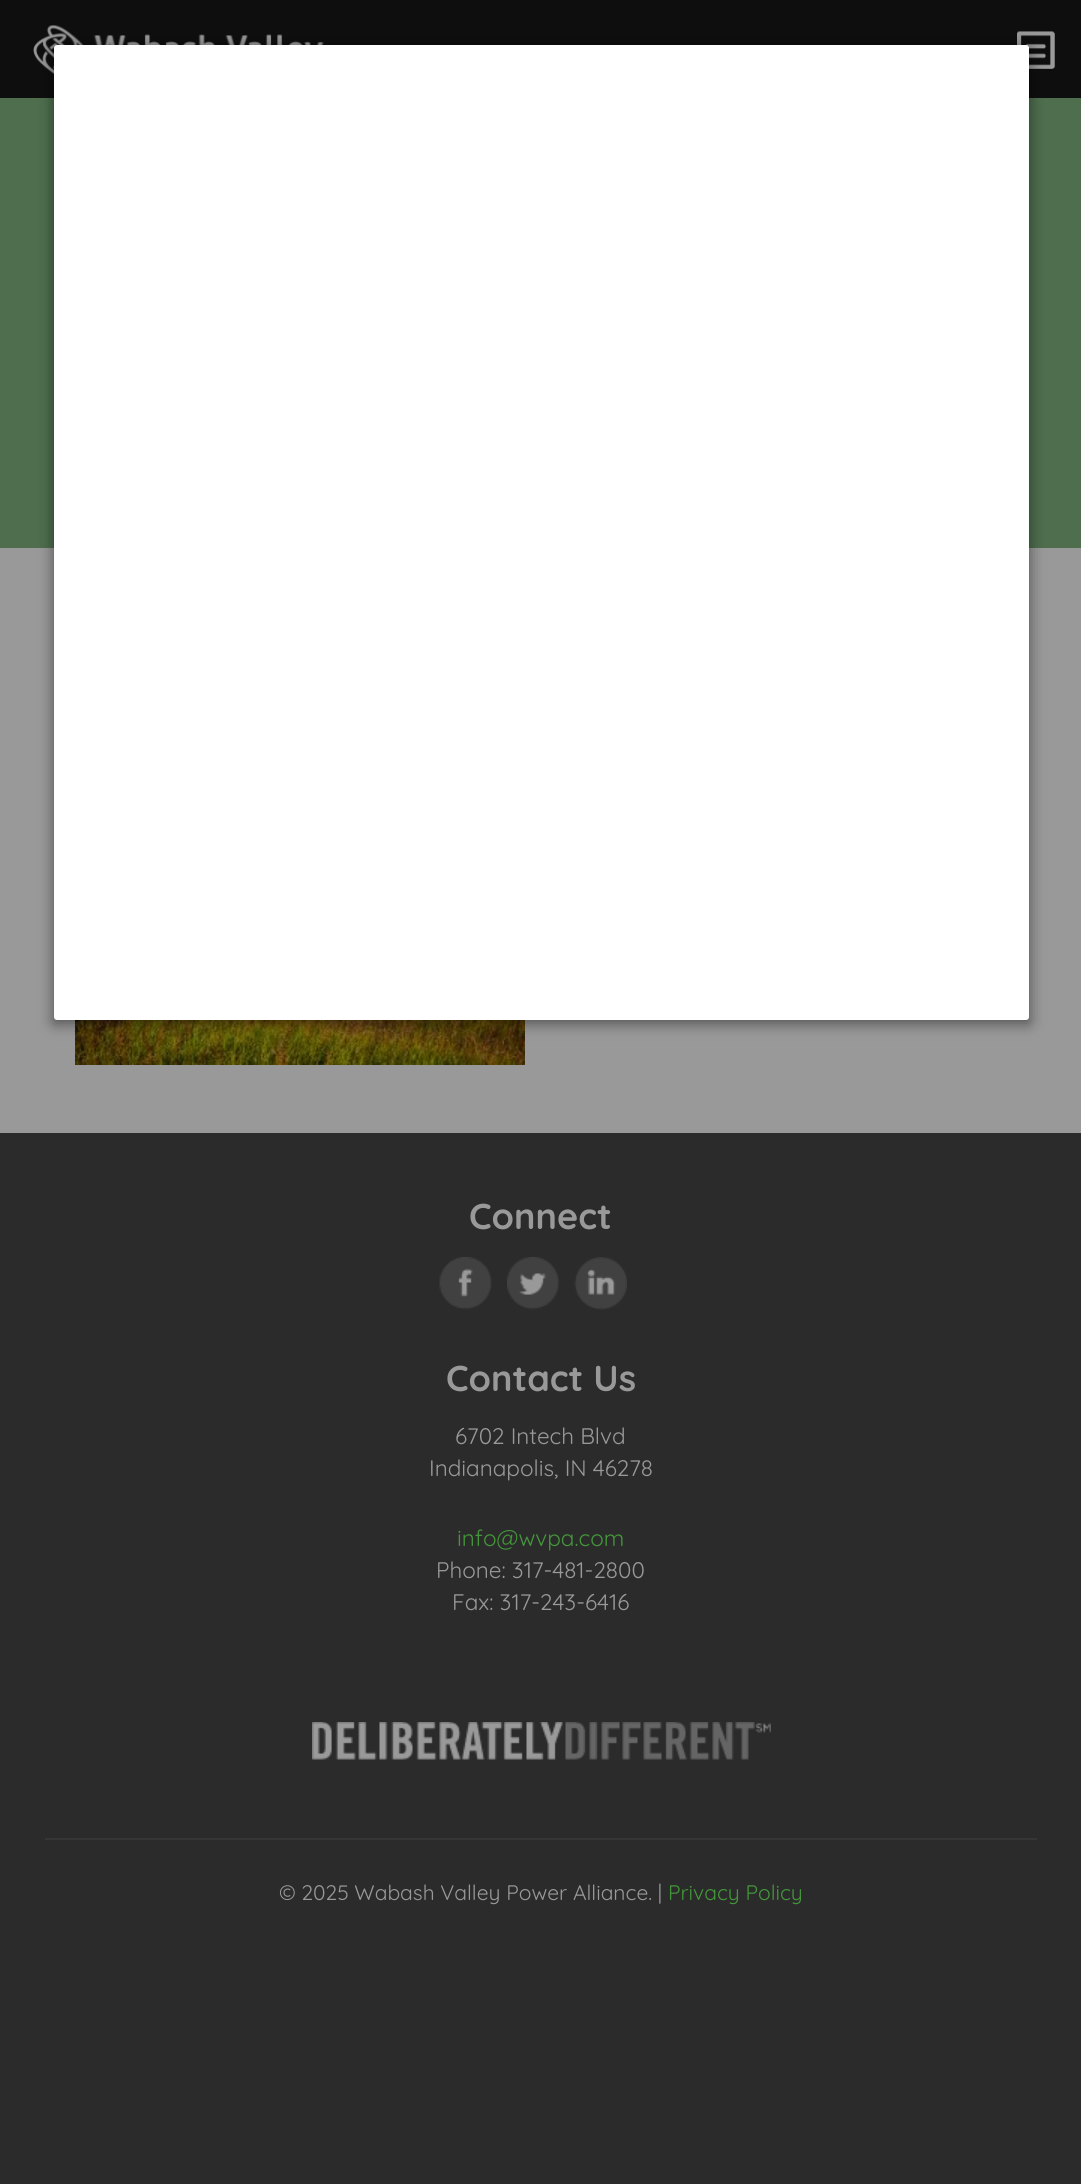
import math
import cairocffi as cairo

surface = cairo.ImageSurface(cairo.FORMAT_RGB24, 1081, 2184)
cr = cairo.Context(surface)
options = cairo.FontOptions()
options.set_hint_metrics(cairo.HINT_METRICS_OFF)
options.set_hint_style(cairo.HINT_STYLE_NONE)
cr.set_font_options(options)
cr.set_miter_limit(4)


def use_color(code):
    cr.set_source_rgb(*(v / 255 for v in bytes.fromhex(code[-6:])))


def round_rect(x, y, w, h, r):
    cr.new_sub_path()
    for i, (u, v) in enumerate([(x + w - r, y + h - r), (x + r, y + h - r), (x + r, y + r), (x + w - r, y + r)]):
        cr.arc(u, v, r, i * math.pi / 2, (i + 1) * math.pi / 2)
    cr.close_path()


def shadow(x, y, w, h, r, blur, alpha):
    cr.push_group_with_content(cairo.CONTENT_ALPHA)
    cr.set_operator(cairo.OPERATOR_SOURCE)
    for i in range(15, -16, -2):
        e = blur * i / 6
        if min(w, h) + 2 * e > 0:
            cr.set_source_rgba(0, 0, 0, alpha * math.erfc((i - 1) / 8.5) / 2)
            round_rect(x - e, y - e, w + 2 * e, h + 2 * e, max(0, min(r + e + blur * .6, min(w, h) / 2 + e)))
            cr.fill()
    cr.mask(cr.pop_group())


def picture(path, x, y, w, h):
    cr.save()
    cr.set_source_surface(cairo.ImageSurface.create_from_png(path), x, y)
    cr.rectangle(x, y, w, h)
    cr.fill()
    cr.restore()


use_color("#2b2b2b")
cr.paint()
use_color("#999999")
cr.rectangle(0, 548, 1081, 585)
cr.fill()
use_color("#0f0e0f")
cr.rectangle(0, 0, 1081, 98)
cr.fill()
picture("img1.png", 33, 25, 291, 50)
picture("img2.png", 1017, 31, 38, 38)
use_color("#4e6e4e")
cr.rectangle(0, 98, 1081, 450)
cr.fill()
picture("img3.png", 75, 1020, 450, 45)
use_color("#000000")
shadow(54, 48, 975, 975, 0, 7.5, 0.5)
use_color("#ffffff")
round_rect(54, 45, 975, 975, 3)
cr.fill()
cr.select_font_face("Quicksand", cairo.FONT_SLANT_NORMAL, cairo.FONT_WEIGHT_BOLD)
cr.set_font_size(36)
use_color("#999999")
cr.move_to(469, 1229)
cr.show_text("Connect")
picture("img4.png", 439, 1257, 53, 53)
picture("img5.png", 507, 1257, 53, 53)
picture("img6.png", 574, 1257, 53, 53)
cr.move_to(446, 1391)
cr.show_text("Contact Us")
cr.select_font_face("Quicksand")
cr.set_font_size(22.5)
cr.move_to(455, 1444)
cr.show_text("6702 Intech Blvd")
cr.move_to(429, 1476)
cr.show_text("Indianapolis, IN 46278")
use_color("#43973a")
cr.move_to(457, 1546)
cr.show_text("info@wvpa.com")
use_color("#999999")
cr.move_to(436, 1578)
cr.show_text("Phone: 317-481-2800")
cr.move_to(452, 1610)
cr.show_text("Fax: 317-243-6416")
picture("img7.png", 312, 1722, 459, 38)
use_color("#363636")
cr.rectangle(45, 1838, 992, 2)
cr.fill()
cr.set_font_size(21)
use_color("#999999")
cr.move_to(279, 1900)
cr.show_text("© 2025 Wabash Valley Power Alliance. |")
use_color("#43973a")
cr.move_to(668, 1900)
cr.show_text("Privacy Policy")
surface.write_to_png("result.png")
